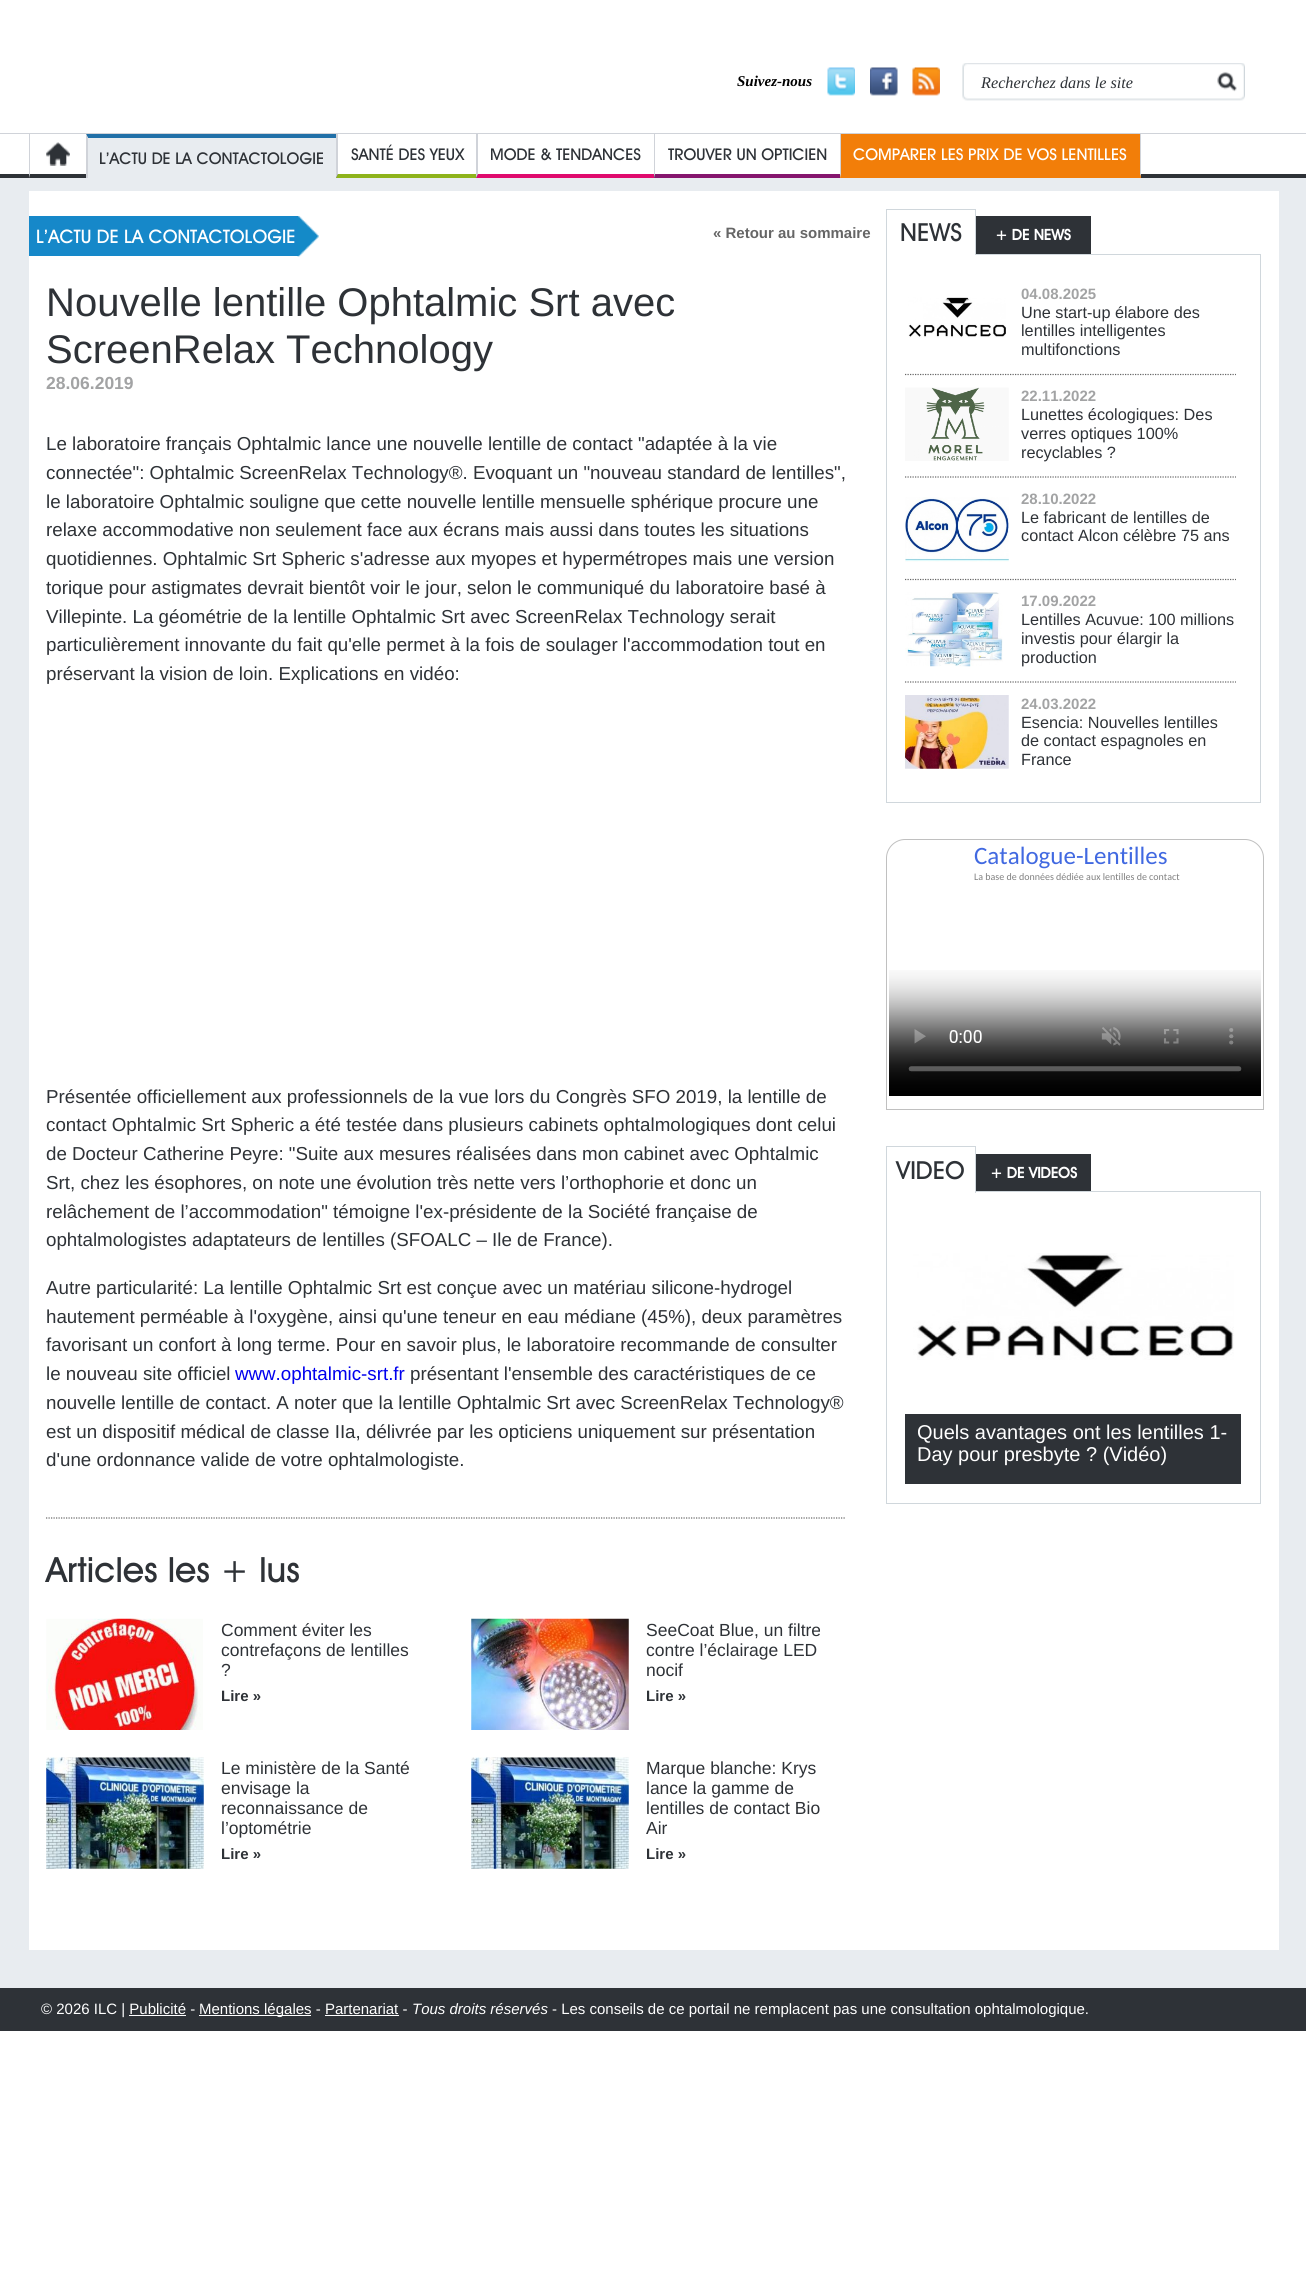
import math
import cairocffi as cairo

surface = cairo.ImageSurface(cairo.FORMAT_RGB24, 1306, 2284)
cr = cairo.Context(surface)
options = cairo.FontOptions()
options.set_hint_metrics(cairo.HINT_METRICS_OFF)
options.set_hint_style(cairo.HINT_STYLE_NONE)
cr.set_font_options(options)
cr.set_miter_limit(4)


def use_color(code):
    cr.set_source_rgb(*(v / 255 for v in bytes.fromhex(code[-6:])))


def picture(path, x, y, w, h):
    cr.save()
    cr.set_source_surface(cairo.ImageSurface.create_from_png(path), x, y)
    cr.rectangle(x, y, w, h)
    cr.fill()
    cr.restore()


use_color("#ffffff")
cr.paint()
cr.select_font_face("Liberation Serif", cairo.FONT_SLANT_ITALIC, cairo.FONT_WEIGHT_BOLD)
cr.set_font_size(15)
use_color("#000000")
cr.move_to(737, 86)
cr.show_text("Suivez-nous")
picture("img1.png", 827, 67, 28, 29)
picture("img2.png", 870, 67, 28, 29)
picture("img3.png", 912, 67, 28, 29)
picture("img4.png", 962, 63, 283, 38)
cr.select_font_face("Liberation Serif", cairo.FONT_SLANT_ITALIC)
cr.set_font_size(16.25)
use_color("#2e3237")
cr.move_to(981, 88)
cr.show_text("Recherchez dans le site")
use_color("#d0d3d9")
cr.rectangle(0, 133, 1306, 1)
cr.fill()
use_color("#2e3237")
cr.rectangle(0, 174, 1306, 4)
cr.fill()
use_color("#d0d3d9")
cr.new_path()
cr.move_to(29, 178)
cr.line_to(29, 134)
cr.line_to(30, 134)
cr.line_to(30, 174)
cr.close_path()
cr.fill()
picture("img5.png", 46, 142, 24, 24)
use_color("#e8ecf0")
cr.rectangle(86, 134, 250, 44)
cr.fill()
use_color("#2170a8")
cr.new_path()
cr.move_to(86, 134)
cr.line_to(336, 134)
cr.line_to(336, 138)
cr.line_to(88, 138)
cr.close_path()
cr.fill()
use_color("#d0d3d9")
cr.new_path()
cr.move_to(86, 178)
cr.line_to(86, 134)
cr.line_to(88, 138)
cr.line_to(88, 178)
cr.close_path()
cr.fill()
cr.select_font_face("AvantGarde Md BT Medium")
use_color("#2e3237")
cr.move_to(99, 164)
cr.show_text("L’ACTU DE LA CONTACTOLOGIE")
use_color("#8eb31b")
cr.new_path()
cr.move_to(476, 178)
cr.line_to(336, 178)
cr.line_to(338, 174)
cr.line_to(476, 174)
cr.close_path()
cr.fill()
use_color("#d0d3d9")
cr.new_path()
cr.move_to(336, 178)
cr.line_to(336, 134)
cr.line_to(338, 134)
cr.line_to(338, 174)
cr.close_path()
cr.fill()
use_color("#2e3237")
cr.move_to(351, 160)
cr.show_text("SANTÉ DES YEUX")
use_color("#df0a6d")
cr.new_path()
cr.move_to(654, 178)
cr.line_to(476, 178)
cr.line_to(478, 174)
cr.line_to(654, 174)
cr.close_path()
cr.fill()
use_color("#d0d3d9")
cr.new_path()
cr.move_to(476, 178)
cr.line_to(476, 134)
cr.line_to(478, 134)
cr.line_to(478, 174)
cr.close_path()
cr.fill()
use_color("#2e3237")
cr.move_to(490, 160)
cr.show_text("MODE & TENDANCES")
use_color("#85156d")
cr.new_path()
cr.move_to(840, 178)
cr.line_to(654, 178)
cr.line_to(655, 174)
cr.line_to(840, 174)
cr.close_path()
cr.fill()
use_color("#d0d3d9")
cr.new_path()
cr.move_to(654, 178)
cr.line_to(654, 134)
cr.line_to(655, 134)
cr.line_to(655, 174)
cr.close_path()
cr.fill()
use_color("#2e3237")
cr.move_to(668, 160)
cr.show_text("TROUVER UN OPTICIEN")
use_color("#f27e09")
cr.rectangle(840, 134, 301, 44)
cr.fill()
use_color("#d0d3d9")
cr.new_path()
cr.move_to(1141, 134)
cr.line_to(1141, 178)
cr.line_to(1140, 174)
cr.line_to(1140, 134)
cr.close_path()
cr.fill()
use_color("#f27e09")
cr.new_path()
cr.move_to(1141, 178)
cr.line_to(840, 178)
cr.line_to(841, 174)
cr.line_to(1140, 174)
cr.close_path()
cr.fill()
use_color("#d0d3d9")
cr.new_path()
cr.move_to(840, 178)
cr.line_to(840, 134)
cr.line_to(841, 134)
cr.line_to(841, 174)
cr.close_path()
cr.fill()
use_color("#ffffff")
cr.move_to(853, 160)
cr.show_text("COMPARER LES PRIX DE VOS LENTILLES")
use_color("#e8ecf0")
cr.rectangle(0, 178, 1306, 1810)
cr.fill()
use_color("#ffffff")
cr.rectangle(29, 191, 1250, 1759)
cr.fill()
use_color("#1688c9")
cr.rectangle(29, 216, 269, 40)
cr.fill()
cr.set_font_size(18.75)
use_color("#ffffff")
cr.move_to(36, 243)
cr.show_text("L’ACTU DE LA CONTACTOLOGIE")
picture("img6.png", 297, 216, 22, 41)
cr.select_font_face("Liberation Sans", cairo.FONT_SLANT_NORMAL, cairo.FONT_WEIGHT_BOLD)
cr.set_font_size(15)
use_color("#666666")
cr.move_to(713, 238)
cr.show_text("« Retour au sommaire")
cr.new_path()
cr.move_to(46, 1518)
cr.line_to(846, 1518)
cr.set_line_width(1.2)
cr.set_dash([1.25, 1.25])
cr.stroke()
cr.select_font_face("Liberation Sans")
cr.set_font_size(40)
use_color("#2e3237")
cr.move_to(46, 316)
cr.show_text("Nouvelle lentille Ophtalmic Srt avec")
cr.move_to(46, 363)
cr.show_text("ScreenRelax Technology")
cr.select_font_face("Liberation Sans", cairo.FONT_SLANT_NORMAL, cairo.FONT_WEIGHT_BOLD)
cr.set_font_size(17.5)
use_color("#a2a3a4")
cr.move_to(46, 389)
cr.show_text("28.06.2019")
cr.select_font_face("Liberation Sans")
cr.set_font_size(18.75)
use_color("#2e3237")
cr.move_to(46, 450)
cr.show_text("Le laboratoire français Ophtalmic lance une nouvelle lentille de contact \"adaptée à la vie")
cr.move_to(46, 479)
cr.show_text("connectée\": Ophtalmic ScreenRelax Technology®. Evoquant un \"nouveau standard de lentilles\",")
cr.move_to(46, 508)
cr.show_text("le laboratoire Ophtalmic souligne que cette nouvelle lentille mensuelle sphérique procure une")
cr.move_to(46, 536)
cr.show_text("relaxe accommodative non seulement face aux écrans mais aussi dans toutes les situations")
cr.move_to(46, 565)
cr.show_text("quotidiennes. Ophtalmic Srt Spheric s'adresse aux myopes et hypermétropes mais une version")
cr.move_to(46, 594)
cr.show_text("torique pour astigmates devrait bientôt voir le jour, selon le communiqué du laboratoire basé à")
cr.move_to(46, 623)
cr.show_text("Villepinte. La géométrie de la lentille Ophtalmic Srt avec ScreenRelax Technology serait")
cr.move_to(46, 651)
cr.show_text("particulièrement innovante du fait qu'elle permet à la fois de soulager l'accommodation tout en")
cr.move_to(46, 680)
cr.show_text("préservant la vision de loin. Explications en vidéo:")
cr.move_to(46, 1103)
cr.show_text("Présentée officiellement aux professionnels de la vue lors du Congrès SFO 2019, la lentille de")
cr.move_to(46, 1131)
cr.show_text("contact Ophtalmic Srt Spheric a été testée dans plusieurs cabinets ophtalmologiques dont celui")
cr.move_to(46, 1160)
cr.show_text("de Docteur Catherine Peyre: \"Suite aux mesures réalisées dans mon cabinet avec Ophtalmic")
cr.move_to(46, 1189)
cr.show_text("Srt, chez les ésophores, on note une évolution très nette vers l’orthophorie et donc un")
cr.move_to(46, 1218)
cr.show_text("relâchement de l’accommodation\" témoigne l'ex-présidente de la Société française de")
cr.move_to(46, 1246)
cr.show_text("ophtalmologistes adaptateurs de lentilles (SFOALC – Ile de France).")
cr.move_to(46, 1294)
cr.show_text("Autre particularité: La lentille Ophtalmic Srt est conçue avec un matériau silicone-hydrogel")
cr.move_to(46, 1323)
cr.show_text("hautement perméable à l'oxygène, ainsi qu'une teneur en eau médiane (45%), deux paramètres")
cr.move_to(46, 1351)
cr.show_text("favorisant un confort à long terme. Pour en savoir plus, le laboratoire recommande de consulter")
cr.move_to(46, 1380)
cr.show_text("le nouveau site officiel")
use_color("#0000ee")
cr.move_to(235, 1380)
cr.show_text("www.ophtalmic-srt.fr")
use_color("#2e3237")
cr.move_to(410, 1380)
cr.show_text("présentant l'ensemble des caractéristiques de ce")
cr.move_to(46, 1409)
cr.show_text("nouvelle lentille de contact. A noter que la lentille Ophtalmic Srt avec ScreenRelax Technology®")
cr.move_to(46, 1438)
cr.show_text("est un dispositif médical de classe IIa, délivrée par les opticiens uniquement sur présentation")
cr.move_to(46, 1466)
cr.show_text("d'une ordonnance valide de votre ophtalmologiste.")
cr.select_font_face("AvantGarde Md BT Medium")
cr.set_font_size(35)
cr.move_to(46, 1582)
cr.show_text("Articles les + lus")
picture("img7.png", 46, 1618, 157, 112)
cr.select_font_face("Liberation Sans")
cr.set_font_size(17.5)
cr.move_to(221, 1636)
cr.show_text("Comment éviter les")
cr.move_to(221, 1656)
cr.show_text("contrefaçons de lentilles")
cr.move_to(221, 1676)
cr.show_text("?")
cr.select_font_face("Liberation Sans", cairo.FONT_SLANT_NORMAL, cairo.FONT_WEIGHT_BOLD)
cr.set_font_size(15)
cr.move_to(221, 1701)
cr.show_text("Lire »")
picture("img8.png", 471, 1618, 158, 112)
cr.select_font_face("Liberation Sans")
cr.set_font_size(17.5)
cr.move_to(646, 1636)
cr.show_text("SeeCoat Blue, un filtre")
cr.move_to(646, 1656)
cr.show_text("contre l’éclairage LED")
cr.move_to(646, 1676)
cr.show_text("nocif")
cr.select_font_face("Liberation Sans", cairo.FONT_SLANT_NORMAL, cairo.FONT_WEIGHT_BOLD)
cr.set_font_size(15)
cr.move_to(646, 1701)
cr.show_text("Lire »")
picture("img9.png", 46, 1757, 158, 112)
cr.select_font_face("Liberation Sans")
cr.set_font_size(17.5)
cr.move_to(221, 1774)
cr.show_text("Le ministère de la Santé")
cr.move_to(221, 1794)
cr.show_text("envisage la")
cr.move_to(221, 1814)
cr.show_text("reconnaissance de")
cr.move_to(221, 1834)
cr.show_text("l’optométrie")
cr.select_font_face("Liberation Sans", cairo.FONT_SLANT_NORMAL, cairo.FONT_WEIGHT_BOLD)
cr.set_font_size(15)
cr.move_to(221, 1859)
cr.show_text("Lire »")
picture("img9.png", 471, 1757, 158, 112)
cr.select_font_face("Liberation Sans")
cr.set_font_size(17.5)
cr.move_to(646, 1774)
cr.show_text("Marque blanche: Krys")
cr.move_to(646, 1794)
cr.show_text("lance la gamme de")
cr.move_to(646, 1814)
cr.show_text("lentilles de contact Bio")
cr.move_to(646, 1834)
cr.show_text("Air")
cr.select_font_face("Liberation Sans", cairo.FONT_SLANT_NORMAL, cairo.FONT_WEIGHT_BOLD)
cr.set_font_size(15)
cr.move_to(646, 1859)
cr.show_text("Lire »")
cr.rectangle(886.5, 254.5, 374, 548)
use_color("#d0d7dc")
cr.set_line_width(1)
cr.set_dash([])
cr.stroke()
use_color("#ffffff")
cr.rectangle(887, 254, 88, 1)
cr.fill()
use_color("#d0d7dc")
cr.rectangle(886, 209, 90, 1)
cr.fill()
cr.rectangle(975, 209, 1, 46)
cr.fill()
cr.rectangle(886, 209, 1, 46)
cr.fill()
cr.select_font_face("AvantGarde Md BT Medium")
cr.set_font_size(25)
use_color("#2e3237")
cr.move_to(900, 241)
cr.show_text("NEWS")
cr.rectangle(976, 216, 115, 38)
cr.fill()
cr.select_font_face("AvantGarde Md BT", cairo.FONT_SLANT_NORMAL, cairo.FONT_WEIGHT_BOLD)
cr.set_font_size(15)
use_color("#ffffff")
cr.move_to(995, 240)
cr.show_text("+ DE NEWS")
picture("img10.png", 908, 297, 98, 41)
cr.select_font_face("Liberation Sans", cairo.FONT_SLANT_NORMAL, cairo.FONT_WEIGHT_BOLD)
use_color("#a2a3a4")
cr.move_to(1021, 299)
cr.show_text("04.08.2025")
cr.select_font_face("Liberation Sans")
cr.set_font_size(16.25)
use_color("#2e3237")
cr.move_to(1021, 318)
cr.show_text("Une start-up élabore des")
cr.move_to(1021, 336)
cr.show_text("lentilles intelligentes")
cr.move_to(1021, 355)
cr.show_text("multifonctions")
cr.new_path()
cr.move_to(905, 374.5)
cr.line_to(1236, 374.5)
use_color("#666666")
cr.set_line_width(1.2)
cr.set_dash([1.25, 1.25])
cr.stroke()
picture("img11.png", 905, 387, 104, 74)
cr.select_font_face("Liberation Sans", cairo.FONT_SLANT_NORMAL, cairo.FONT_WEIGHT_BOLD)
cr.set_font_size(15)
use_color("#a2a3a4")
cr.move_to(1021, 401)
cr.show_text("22.11.2022")
cr.select_font_face("Liberation Sans")
cr.set_font_size(16.25)
use_color("#2e3237")
cr.move_to(1021, 420)
cr.show_text("Lunettes écologiques: Des")
cr.move_to(1021, 439)
cr.show_text("verres optiques 100%")
cr.move_to(1021, 458)
cr.show_text("recyclables ?")
cr.new_path()
cr.move_to(905, 477)
cr.line_to(1236, 477)
use_color("#666666")
cr.stroke()
picture("img12.png", 905, 497, 104, 65)
cr.select_font_face("Liberation Sans", cairo.FONT_SLANT_NORMAL, cairo.FONT_WEIGHT_BOLD)
cr.set_font_size(15)
use_color("#a2a3a4")
cr.move_to(1021, 504)
cr.show_text("28.10.2022")
cr.select_font_face("Liberation Sans")
cr.set_font_size(16.25)
use_color("#2e3237")
cr.move_to(1021, 523)
cr.show_text("Le fabricant de lentilles de")
cr.move_to(1021, 541)
cr.show_text("contact Alcon célèbre 75 ans")
cr.new_path()
cr.move_to(905, 579.5)
cr.line_to(1236, 579.5)
use_color("#666666")
cr.stroke()
picture("img13.png", 905, 592, 98, 75)
cr.select_font_face("Liberation Sans", cairo.FONT_SLANT_NORMAL, cairo.FONT_WEIGHT_BOLD)
cr.set_font_size(15)
use_color("#a2a3a4")
cr.move_to(1021, 606)
cr.show_text("17.09.2022")
cr.select_font_face("Liberation Sans")
cr.set_font_size(16.25)
use_color("#2e3237")
cr.move_to(1021, 625)
cr.show_text("Lentilles Acuvue: 100 millions")
cr.move_to(1021, 644)
cr.show_text("investis pour élargir la")
cr.move_to(1021, 663)
cr.show_text("production")
cr.new_path()
cr.move_to(905, 682)
cr.line_to(1236, 682)
use_color("#666666")
cr.stroke()
picture("img14.png", 905, 695, 104, 74)
cr.select_font_face("Liberation Sans", cairo.FONT_SLANT_NORMAL, cairo.FONT_WEIGHT_BOLD)
cr.set_font_size(15)
use_color("#a2a3a4")
cr.move_to(1021, 709)
cr.show_text("24.03.2022")
cr.select_font_face("Liberation Sans")
cr.set_font_size(16.25)
use_color("#2e3237")
cr.move_to(1021, 728)
cr.show_text("Esencia: Nouvelles lentilles")
cr.move_to(1021, 746)
cr.show_text("de contact espagnoles en")
cr.move_to(1021, 765)
cr.show_text("France")
cr.new_path()
cr.move_to(905, 839.5)
cr.line_to(1245, 839.5)
cr.curve_to(1255, 839.5, 1263.5, 848, 1263.5, 858)
cr.line_to(1263.5, 1109.5)
cr.line_to(886.5, 1109.5)
cr.line_to(886.5, 858)
cr.curve_to(886.5, 848, 895, 839.5, 905, 839.5)
cr.close_path()
use_color("#c0c0c0")
cr.set_line_width(1)
cr.set_dash([])
cr.stroke()
cr.select_font_face("Carlito")
cr.set_font_size(25)
use_color("#4169e1")
cr.move_to(974, 864)
cr.show_text("Catalogue-Lentilles")
cr.set_font_size(10)
use_color("#808080")
cr.move_to(974, 880)
cr.show_text("La base de données dédiée aux lentilles de contact")
picture("img15.png", 889, 970, 372, 126)
cr.rectangle(886.5, 1191.5, 374, 312)
use_color("#d0d7dc")
cr.stroke()
use_color("#ffffff")
cr.rectangle(887, 1191, 88, 1)
cr.fill()
use_color("#d0d7dc")
cr.rectangle(886, 1146, 90, 1)
cr.fill()
cr.rectangle(975, 1146, 1, 47)
cr.fill()
cr.rectangle(886, 1146, 1, 47)
cr.fill()
cr.select_font_face("AvantGarde Md BT Medium")
cr.set_font_size(25)
use_color("#2e3237")
cr.move_to(896, 1179)
cr.show_text("VIDEO")
cr.rectangle(976, 1154, 115, 37)
cr.fill()
cr.select_font_face("AvantGarde Md BT", cairo.FONT_SLANT_NORMAL, cairo.FONT_WEIGHT_BOLD)
cr.set_font_size(15)
use_color("#ffffff")
cr.move_to(990, 1178)
cr.show_text("+ DE VIDEOS")
picture("img16.png", 913, 1253, 321, 107)
use_color("#2e3237")
cr.rectangle(905, 1414, 336, 70)
cr.fill()
cr.select_font_face("Liberation Sans")
cr.set_font_size(20)
use_color("#ffffff")
cr.move_to(917, 1439)
cr.show_text("Quels avantages ont les lentilles 1-")
cr.move_to(917, 1461)
cr.show_text("Day pour presbyte ? (Vidéo)")
use_color("#2e3237")
cr.rectangle(0, 1988, 1306, 43)
cr.fill()
cr.set_font_size(15)
use_color("#ffffff")
cr.move_to(41, 2014)
cr.show_text("© 2026 ILC | Publicité -")
cr.rectangle(199, 2015, 112, 1)
cr.fill()
cr.move_to(199, 2014)
cr.show_text("Mentions légales - Partenariat -")
cr.select_font_face("Liberation Sans", cairo.FONT_SLANT_ITALIC)
cr.move_to(412, 2014)
cr.show_text("Tous droits réservés")
cr.select_font_face("Liberation Sans")
cr.move_to(552, 2014)
cr.show_text("- Les conseils de ce portail ne remplacent pas une consultation ophtalmologique.")
cr.rectangle(129, 2015, 57, 1)
cr.fill()
cr.rectangle(325, 2015, 74, 1)
cr.fill()
surface.write_to_png("result.png")
